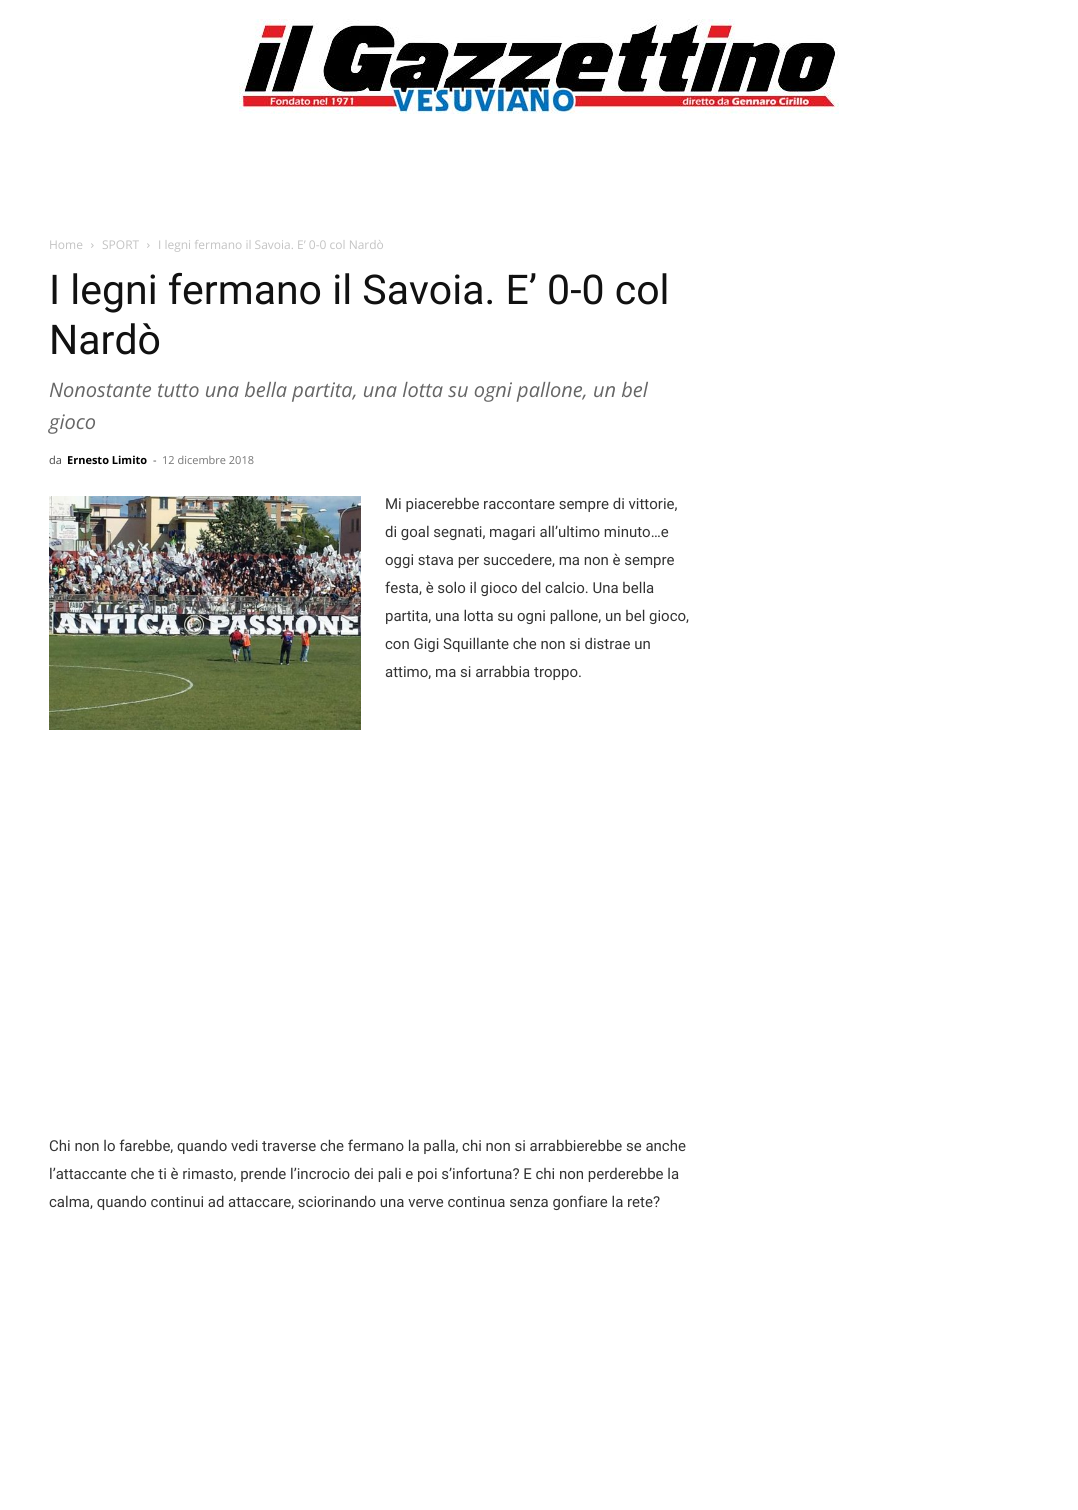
import math
import cairocffi as cairo

surface = cairo.ImageSurface(cairo.FORMAT_RGB24, 1078, 1510)
cr = cairo.Context(surface)
options = cairo.FontOptions()
options.set_hint_metrics(cairo.HINT_METRICS_OFF)
options.set_hint_style(cairo.HINT_STYLE_NONE)
cr.set_font_options(options)
cr.set_miter_limit(4)


def use_color(code):
    cr.set_source_rgb(*(v / 255 for v in bytes.fromhex(code[-6:])))


def picture(path, x, y, w, h):
    cr.save()
    cr.set_source_surface(cairo.ImageSurface.create_from_png(path), x, y)
    cr.rectangle(x, y, w, h)
    cr.fill()
    cr.restore()


use_color("#ffffff")
cr.paint()
picture("img1.png", 239, 19, 600, 95)
cr.select_font_face("Open Sans")
cr.set_font_size(12)
use_color("#c3c3c3")
cr.move_to(49, 249)
cr.show_text("Home")
picture("img2.png", 91, 243, 3, 5)
cr.move_to(102, 249)
cr.show_text("SPORT")
picture("img2.png", 147, 243, 3, 5)
cr.move_to(158, 249)
cr.show_text("I legni fermano il Savoia. E’ 0-0 col Nardò")
cr.select_font_face("Roboto")
cr.set_font_size(41)
use_color("#111111")
cr.move_to(49, 304)
cr.show_text("I legni fermano il Savoia. E’ 0-0 col")
cr.move_to(49, 354)
cr.show_text("Nardò")
cr.select_font_face("Open Sans", cairo.FONT_SLANT_ITALIC)
cr.set_font_size(20)
use_color("#666666")
cr.move_to(49, 397)
cr.show_text("Nonostante tutto una bella partita, una lotta su ogni pallone, un bel")
cr.move_to(49, 429)
cr.show_text("gioco")
cr.select_font_face("Open Sans")
cr.set_font_size(11)
use_color("#444444")
cr.move_to(49, 464)
cr.show_text("da")
cr.select_font_face("Open Sans", cairo.FONT_SLANT_NORMAL, cairo.FONT_WEIGHT_BOLD)
use_color("#000000")
cr.move_to(67, 464)
cr.show_text("Ernesto Limito")
cr.select_font_face("Open Sans")
use_color("#444444")
cr.move_to(153, 464)
cr.show_text("-")
use_color("#767676")
cr.move_to(162, 464)
cr.show_text("12 dicembre 2018")
picture("img3.png", 49, 496, 312, 234)
cr.select_font_face("Roboto")
cr.set_font_size(15)
use_color("#333333")
cr.move_to(385, 509)
cr.show_text("Mi piacerebbe raccontare sempre di vittorie,")
cr.move_to(385, 537)
cr.show_text("di goal segnati, magari all’ultimo minuto…e")
cr.move_to(385, 565)
cr.show_text("oggi stava per succedere, ma non è sempre")
cr.move_to(385, 593)
cr.show_text("festa, è solo il gioco del calcio. Una bella")
cr.move_to(385, 621)
cr.show_text("partita, una lotta su ogni pallone, un bel gioco,")
cr.move_to(385, 649)
cr.show_text("con Gigi Squillante che non si distrae un")
cr.move_to(385, 677)
cr.show_text("attimo, ma si arrabbia troppo.")
cr.move_to(49, 1151)
cr.show_text("Chi non lo farebbe, quando vedi traverse che fermano la palla, chi non si arrabbierebbe se anche")
cr.move_to(49, 1179)
cr.show_text("l’attaccante che ti è rimasto, prende l’incrocio dei pali e poi s’infortuna? E chi non perderebbe la")
cr.move_to(49, 1207)
cr.show_text("calma, quando continui ad attaccare, sciorinando una verve continua senza gonfiare la rete?")
surface.write_to_png("result.png")
